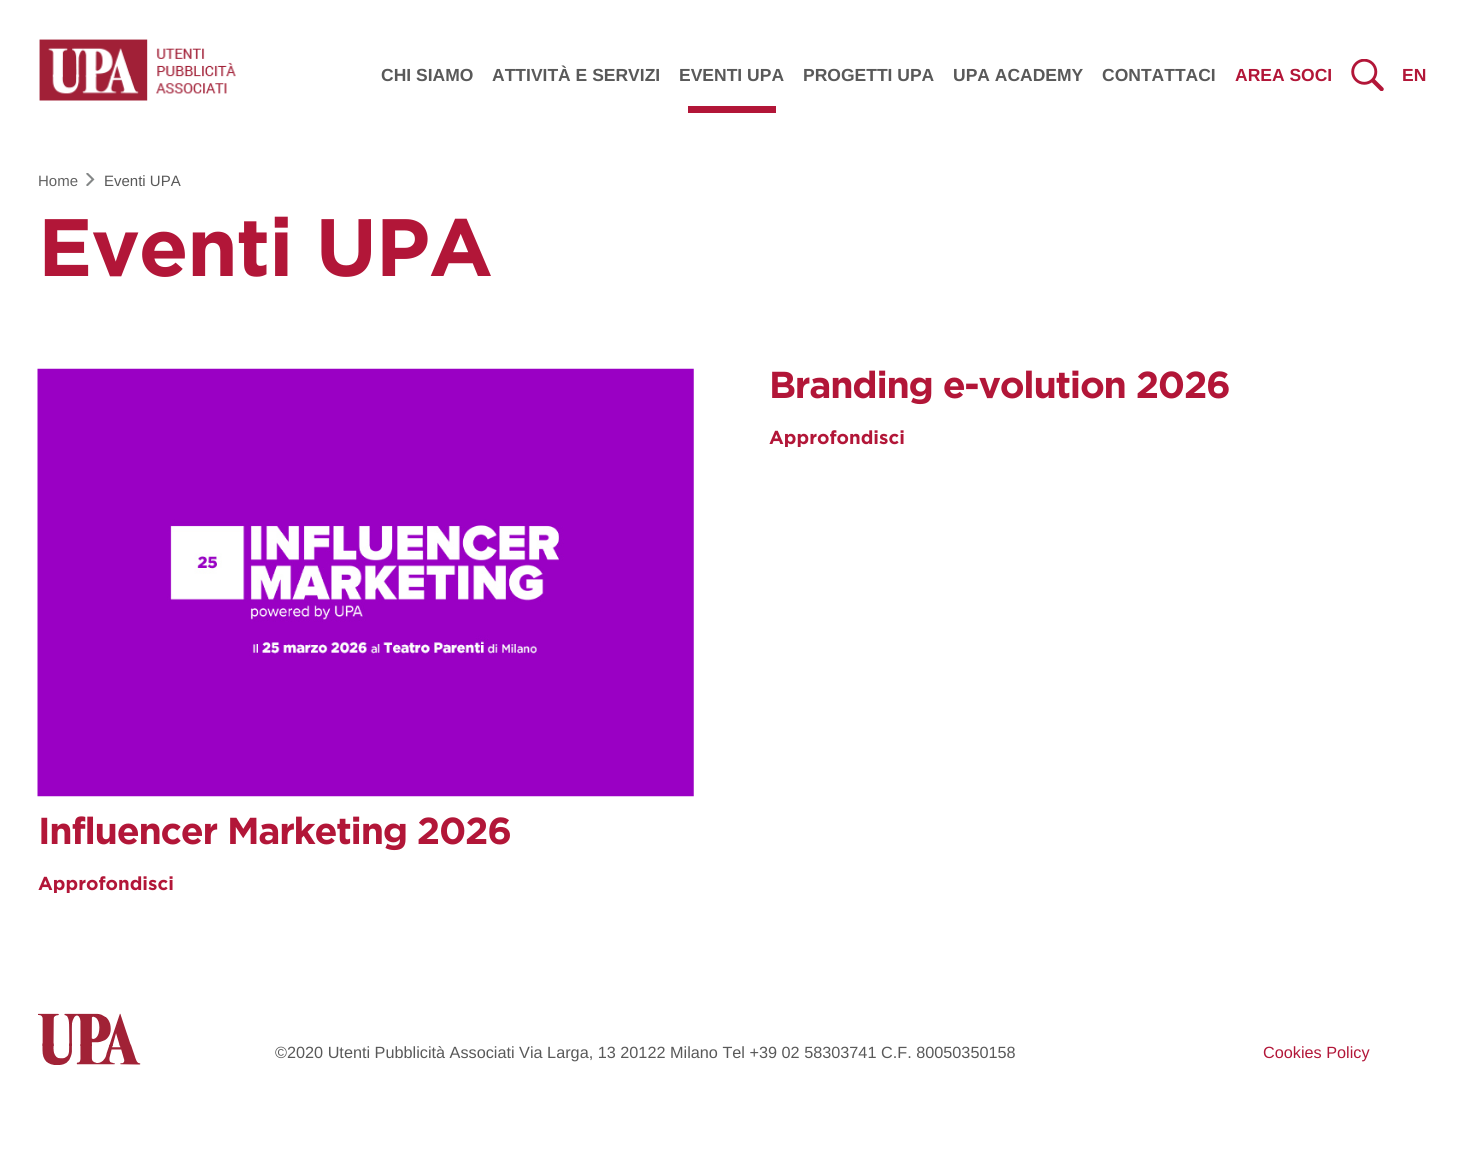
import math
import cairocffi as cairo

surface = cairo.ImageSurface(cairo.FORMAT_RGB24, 1463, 1155)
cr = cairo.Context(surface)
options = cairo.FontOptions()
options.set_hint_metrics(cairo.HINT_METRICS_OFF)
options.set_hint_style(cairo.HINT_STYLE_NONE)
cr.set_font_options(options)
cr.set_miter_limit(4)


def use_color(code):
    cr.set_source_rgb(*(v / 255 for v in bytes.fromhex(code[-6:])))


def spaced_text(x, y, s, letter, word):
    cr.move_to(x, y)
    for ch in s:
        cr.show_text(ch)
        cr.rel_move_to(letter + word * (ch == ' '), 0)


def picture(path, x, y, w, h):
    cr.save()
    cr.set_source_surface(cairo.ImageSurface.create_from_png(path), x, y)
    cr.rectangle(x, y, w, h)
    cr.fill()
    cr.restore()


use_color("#ffffff")
cr.paint()
picture("img1.png", 39, 39, 197, 62)
cr.select_font_face("Liberation Sans", cairo.FONT_SLANT_NORMAL, cairo.FONT_WEIGHT_BOLD)
cr.set_font_size(17.5)
use_color("#595959")
cr.move_to(381, 81)
cr.show_text("CHI SIAMO")
cr.move_to(492, 81)
cr.show_text("ATTIVITÀ E SERVIZI")
cr.move_to(679, 81)
cr.show_text("EVENTI UPA")
use_color("#b21638")
cr.rectangle(688, 106, 88, 7)
cr.fill()
use_color("#595959")
cr.move_to(803, 81)
cr.show_text("PROGETTI UPA")
cr.move_to(953, 81)
cr.show_text("UPA ACADEMY")
cr.move_to(1102, 81)
cr.show_text("CONTATTACI")
use_color("#b21638")
cr.move_to(1235, 81)
cr.show_text("AREA SOCI")
picture("img2.png", 1351, 59, 33, 32)
cr.move_to(1402, 81)
cr.show_text("EN")
cr.select_font_face("Liberation Sans")
cr.set_font_size(15)
use_color("#636363")
cr.move_to(38, 186)
cr.show_text("Home")
picture("img3.png", 86, 173, 9, 13)
use_color("#595959")
cr.move_to(104, 186)
cr.show_text("Eventi UPA")
cr.select_font_face("Gotham", cairo.FONT_SLANT_NORMAL, cairo.FONT_WEIGHT_BOLD)
cr.set_font_size(81.25)
use_color("#b21638")
spaced_text(38, 276, "Eventi UPA", -1.25, 0)
cr.set_font_size(37.5)
spaced_text(769, 398, "Branding e-volution 2026", -1.25, 0)
cr.set_font_size(18.75)
cr.move_to(769, 444)
cr.show_text("Approfondisci")
picture("img4.png", 37, 368, 657, 429)
cr.set_font_size(37.5)
spaced_text(38, 844, "Influencer Marketing 2026", -1.25, 0)
cr.set_font_size(18.75)
cr.move_to(38, 890)
cr.show_text("Approfondisci")
picture("img5.png", 38, 1013, 103, 52)
cr.select_font_face("Liberation Sans")
cr.set_font_size(16.25)
use_color("#595959")
cr.move_to(275, 1058)
cr.show_text("©2020 Utenti Pubblicità Associati Via Larga, 13 20122 Milano Tel +39 02 58303741 C.F. 80050350158")
use_color("#b21638")
cr.move_to(1263, 1058)
cr.show_text("Cookies Policy")
surface.write_to_png("result.png")
